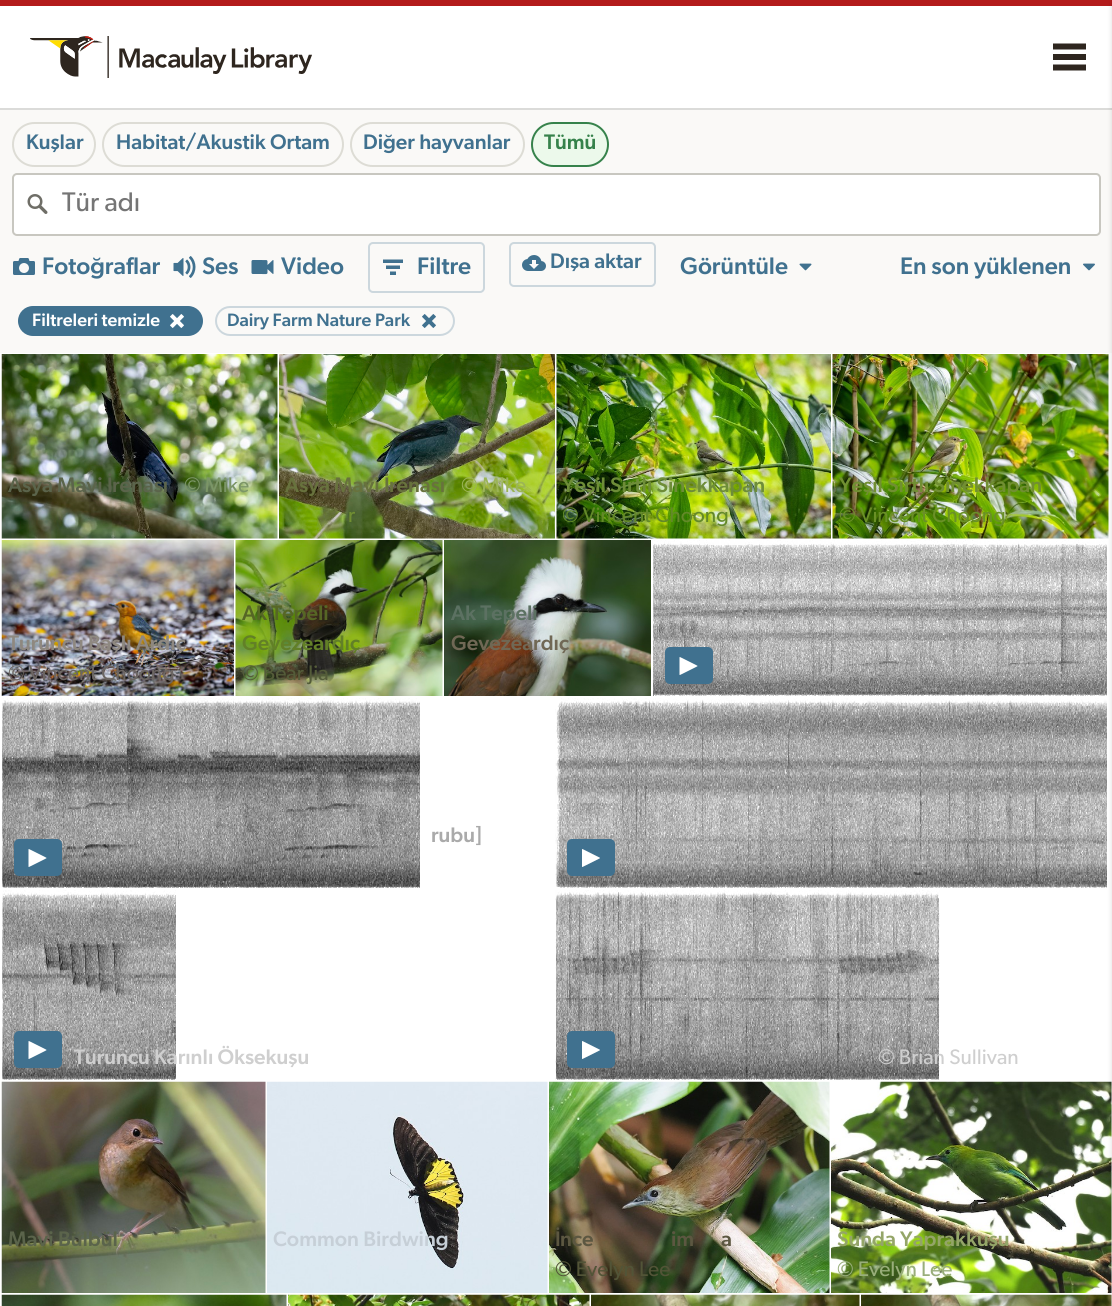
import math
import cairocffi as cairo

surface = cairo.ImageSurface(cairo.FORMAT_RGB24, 1112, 1306)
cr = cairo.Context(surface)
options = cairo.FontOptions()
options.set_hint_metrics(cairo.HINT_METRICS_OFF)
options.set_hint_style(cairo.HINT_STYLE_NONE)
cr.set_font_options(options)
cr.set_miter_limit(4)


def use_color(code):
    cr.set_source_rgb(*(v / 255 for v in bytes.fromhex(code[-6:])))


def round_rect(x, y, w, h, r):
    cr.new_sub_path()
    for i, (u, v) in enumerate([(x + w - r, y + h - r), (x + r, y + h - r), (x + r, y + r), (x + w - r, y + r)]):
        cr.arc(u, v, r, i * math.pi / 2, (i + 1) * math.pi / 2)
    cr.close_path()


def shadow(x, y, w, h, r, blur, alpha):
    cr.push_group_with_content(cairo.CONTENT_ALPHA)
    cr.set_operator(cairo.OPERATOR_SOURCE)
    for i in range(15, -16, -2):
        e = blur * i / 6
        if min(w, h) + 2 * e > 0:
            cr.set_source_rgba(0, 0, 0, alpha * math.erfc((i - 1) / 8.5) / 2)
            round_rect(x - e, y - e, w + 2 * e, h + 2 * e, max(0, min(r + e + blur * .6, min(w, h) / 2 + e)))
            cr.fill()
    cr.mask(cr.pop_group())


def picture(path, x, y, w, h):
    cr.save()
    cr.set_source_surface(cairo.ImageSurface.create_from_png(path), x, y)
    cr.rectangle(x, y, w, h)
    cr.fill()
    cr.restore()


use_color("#ffffff")
cr.paint()
use_color("#b31b1b")
cr.rectangle(0, 0, 1112, 6)
cr.fill()
use_color("#dbdbd9")
cr.rectangle(0, 108, 1112, 2)
cr.fill()
picture("img1.png", 30, 36, 282, 42)
use_color("#2e261f")
cr.set_fill_rule(cairo.FILL_RULE_EVEN_ODD)
cr.new_path()
cr.move_to(1053, 43.5)
cr.line_to(1086, 43.5)
cr.line_to(1086, 49.5)
cr.line_to(1053, 49.5)
cr.close_path()
cr.move_to(1053, 54)
cr.line_to(1086, 54)
cr.line_to(1086, 60)
cr.line_to(1053, 60)
cr.close_path()
cr.move_to(1053, 64.5)
cr.line_to(1086, 64.5)
cr.line_to(1086, 70.5)
cr.line_to(1053, 70.5)
cr.close_path()
cr.fill()
use_color("#faf9f7")
cr.rectangle(0, 110, 1112, 243)
cr.fill()
picture("img15.png", 832, 354, 277, 185)
picture("img18.png", 652, 540, 455, 156)
picture("img22.png", 555, 698, 552, 190)
picture("img29.png", 831, 1081, 281, 212)
picture("img33.png", 861, 1294, 251, 12)
use_color("#000000")
shadow(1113, 3, 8, 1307, 0, 3, 0.2)
round_rect(13, 123, 82, 43, 21.5)
use_color("#dddcd5")
cr.stroke()
cr.select_font_face("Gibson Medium")
cr.set_font_size(21.1)
use_color("#40718f")
cr.move_to(26, 149)
cr.show_text("Kuşlar")
round_rect(103, 123, 240, 43, 21.5)
use_color("#dddcd5")
cr.stroke()
use_color("#40718f")
cr.move_to(116, 149)
cr.show_text("Habitat/Akustik Ortam")
round_rect(351, 123, 173, 43, 21.5)
use_color("#dddcd5")
cr.stroke()
use_color("#40718f")
cr.move_to(363, 149)
cr.show_text("Diğer hayvanlar")
use_color("#ecf9eb")
round_rect(532, 123, 76, 43, 21.5)
cr.fill_preserve()
use_color("#36824b")
cr.stroke()
cr.move_to(544, 149)
cr.show_text("Tümü")
use_color("#ffffff")
round_rect(13, 174, 1087, 61, 4)
cr.fill_preserve()
use_color("#c8c7c0")
cr.stroke()
picture("img2.png", 27, 194, 21, 20)
cr.save()
cr.set_fill_rule(cairo.FILL_RULE_WINDING)
cr.rectangle(62, 191, 1026, 27)
cr.clip()
cr.select_font_face("Gibson")
cr.set_font_size(27)
use_color("#757575")
cr.move_to(62, 211)
cr.show_text("Tür adı")
cr.restore()
picture("img3.png", 13, 258, 22, 17)
cr.set_font_size(24)
use_color("#40718f")
cr.move_to(42, 274)
cr.show_text("Fotoğraflar")
picture("img4.png", 173, 256, 23, 22)
cr.move_to(202, 274)
cr.show_text("Ses")
picture("img5.png", 251, 260, 23, 15)
cr.move_to(281, 274)
cr.show_text("Video")
round_rect(369, 243, 115, 49, 4)
use_color("#ccd7dd")
cr.stroke()
picture("img6.png", 383, 259, 20, 16)
use_color("#40718f")
cr.move_to(417, 274)
cr.show_text("Filtre")
round_rect(510, 243, 145, 43, 4)
use_color("#ccd7dd")
cr.stroke()
picture("img7.png", 522, 255, 24, 16)
cr.set_font_size(21.1)
use_color("#40718f")
cr.move_to(550, 268)
cr.show_text("Dışa aktar")
cr.set_font_size(24)
cr.move_to(680, 274)
cr.show_text("Görüntüle")
picture("img8.png", 799, 263, 13, 8)
cr.move_to(900, 274)
cr.show_text("En son yüklenen")
picture("img9.png", 1083, 263, 12, 8)
round_rect(18, 306, 185, 30, 15)
cr.fill()
cr.set_font_size(18)
use_color("#ffffff")
cr.move_to(32, 326)
cr.show_text("Filtreleri temizle")
picture("img10.png", 170, 314, 14, 14)
round_rect(216, 307, 238, 28, 14)
use_color("#ccd7dd")
cr.stroke()
use_color("#40718f")
cr.move_to(227, 326)
cr.show_text("Dairy Farm Nature Park")
picture("img11.png", 422, 314, 14, 14)
picture("img12.png", 1, 354, 277, 185)
cr.set_font_size(21.1)
use_color("#5b644b")
cr.move_to(8, 492)
cr.show_text("Asya Mavi İrenası")
cr.select_font_face("Gibson")
use_color("#7c9667")
cr.move_to(184, 492)
cr.show_text("© Mike")
picture("img13.png", 279, 354, 276, 185)
cr.select_font_face("Gibson Medium")
use_color("#68723d")
cr.move_to(285, 492)
cr.show_text("Asya Mavi İrenası")
cr.select_font_face("Gibson")
use_color("#9bb457")
cr.move_to(461, 492)
cr.show_text("© Mike")
use_color("#718f32")
cr.move_to(348, 522)
cr.show_text("r")
picture("img14.png", 556, 354, 275, 185)
cr.select_font_face("Gibson Medium")
use_color("#6e8d38")
cr.move_to(562, 492)
cr.show_text("Yeşil Sırtlı Sinekkapan")
cr.save()
cr.set_fill_rule(cairo.FILL_RULE_WINDING)
cr.rectangle(563, 473, 262, 60)
cr.clip()
cr.select_font_face("Gibson")
use_color("#638929")
cr.move_to(562, 522)
cr.show_text("© Vincent Choong")
cr.restore()
use_color("#718f32")
cr.move_to(839, 492)
cr.show_text("Yeşil Sırtlı Sinekkapan")
cr.select_font_face("Gibson")
use_color("#6a9027")
cr.move_to(839, 522)
cr.show_text("© Vincent Choong")
picture("img16.png", 235, 540, 208, 156)
cr.select_font_face("Gibson Medium")
use_color("#566625")
cr.move_to(242, 620)
cr.show_text("Ak Tepeli")
use_color("#628027")
cr.move_to(242, 650)
cr.show_text("Gevezeardıç")
cr.select_font_face("Gibson")
use_color("#545c39")
cr.move_to(242, 680)
cr.show_text("© Bear Jia")
picture("img17.png", 444, 540, 207, 156)
cr.select_font_face("Gibson Medium")
use_color("#5c7162")
cr.move_to(451, 620)
cr.show_text("Ak Tepeli")
use_color("#706855")
cr.move_to(451, 650)
cr.show_text("Gevezeardıç")
use_color("#40718f")
round_rect(665, 647, 48, 37, 5)
cr.fill()
picture("img19.png", 679, 657, 19, 18)
picture("img20.png", 1, 540, 233, 156)
cr.save()
cr.set_fill_rule(cairo.FILL_RULE_WINDING)
cr.rectangle(8, 630, 220, 60)
cr.clip()
use_color("#8e8880")
cr.move_to(8, 650)
cr.show_text("Turuncu Başlı Ardıç")
cr.restore()
cr.select_font_face("Gibson")
use_color("#6c6663")
cr.move_to(8, 680)
cr.show_text("© Vincent Choong")
picture("img21.png", 1, 698, 419, 190)
cr.select_font_face("Gibson Medium")
use_color("#aaaaaa")
cr.move_to(431, 842)
cr.show_text("rubu]")
use_color("#40718f")
round_rect(14, 839, 48, 37, 5)
cr.fill()
picture("img19.png", 28, 849, 19, 18)
round_rect(567, 839, 48, 37, 5)
cr.fill()
picture("img23.png", 582, 849, 18, 18)
picture("img24.png", 2, 890, 174, 190)
round_rect(14, 1031, 48, 37, 5)
cr.fill()
picture("img19.png", 28, 1041, 19, 18)
cr.save()
cr.set_fill_rule(cairo.FILL_RULE_WINDING)
cr.rectangle(74, 1044, 474, 30)
cr.clip()
use_color("#cfcfcf")
cr.move_to(74, 1064)
cr.show_text("Turuncu Karınlı Öksekuşu")
cr.restore()
picture("img25.png", 555, 890, 385, 190)
round_rect(567, 1031, 48, 37, 5)
cr.fill()
picture("img23.png", 582, 1041, 18, 18)
cr.select_font_face("Gibson")
use_color("#cfcfcf")
cr.move_to(878, 1064)
cr.show_text("© Brian Sullivan")
picture("img26.png", 1, 1081, 265, 212)
cr.select_font_face("Gibson Medium")
use_color("#5b644b")
cr.move_to(8, 1246)
cr.show_text("Mavi Bülbül")
picture("img27.png", 267, 1081, 281, 212)
use_color("#c6cfd7")
cr.move_to(273, 1246)
cr.show_text("Common Birdwing")
picture("img28.png", 549, 1081, 281, 212)
use_color("#5c5741")
cr.move_to(555, 1246)
cr.show_text("İnce")
cr.move_to(671, 1246)
cr.show_text("im")
cr.move_to(721, 1246)
cr.show_text("a")
cr.select_font_face("Gibson")
use_color("#525437")
cr.move_to(555, 1276)
cr.show_text("© Evelyn Lee")
cr.select_font_face("Gibson Medium")
use_color("#94a568")
cr.move_to(837, 1246)
cr.show_text("Sunda Yaprakkuşu")
cr.select_font_face("Gibson")
use_color("#99ae7a")
cr.move_to(837, 1276)
cr.show_text("© Evelyn Lee")
picture("img30.png", 1, 1294, 286, 12)
picture("img31.png", 288, 1294, 302, 12)
picture("img32.png", 591, 1294, 269, 12)
surface.write_to_png("result.png")
